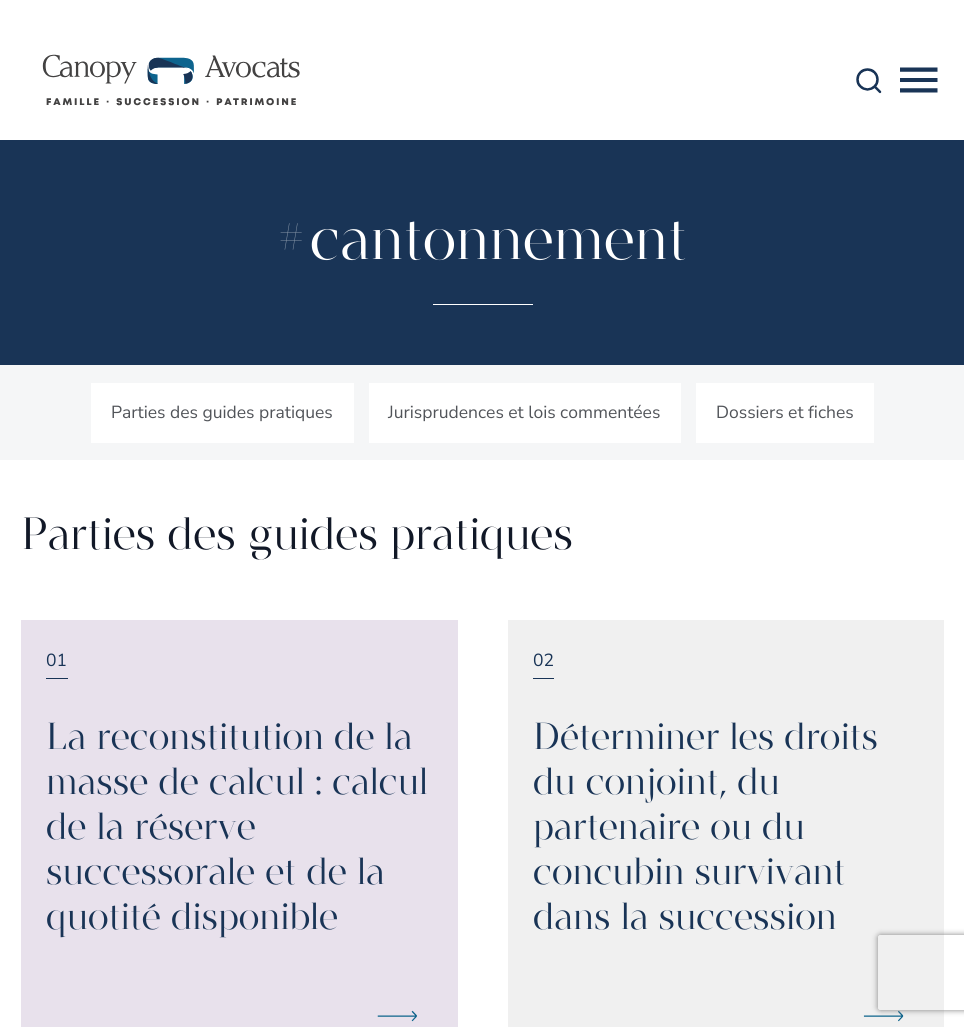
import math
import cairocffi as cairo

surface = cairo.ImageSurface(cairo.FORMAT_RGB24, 964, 1027)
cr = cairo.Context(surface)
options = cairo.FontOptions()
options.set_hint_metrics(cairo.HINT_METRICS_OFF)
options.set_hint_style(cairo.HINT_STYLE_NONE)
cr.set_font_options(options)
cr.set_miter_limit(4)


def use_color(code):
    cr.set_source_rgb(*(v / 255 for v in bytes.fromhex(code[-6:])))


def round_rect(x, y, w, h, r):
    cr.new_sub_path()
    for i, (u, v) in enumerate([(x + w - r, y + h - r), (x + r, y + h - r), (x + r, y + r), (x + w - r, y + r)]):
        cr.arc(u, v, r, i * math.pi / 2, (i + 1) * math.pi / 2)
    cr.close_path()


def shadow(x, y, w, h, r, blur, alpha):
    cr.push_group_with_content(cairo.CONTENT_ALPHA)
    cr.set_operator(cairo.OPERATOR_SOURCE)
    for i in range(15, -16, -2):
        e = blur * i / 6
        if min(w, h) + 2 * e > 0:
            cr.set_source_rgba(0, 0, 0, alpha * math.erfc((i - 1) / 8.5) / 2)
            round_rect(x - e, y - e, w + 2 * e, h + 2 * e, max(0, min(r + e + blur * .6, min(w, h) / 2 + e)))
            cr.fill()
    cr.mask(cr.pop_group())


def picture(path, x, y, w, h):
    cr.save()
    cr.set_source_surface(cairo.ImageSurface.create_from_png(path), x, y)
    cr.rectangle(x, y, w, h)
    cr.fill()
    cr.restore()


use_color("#ffffff")
cr.paint()
picture("img1.png", 42, 54, 258, 52)
picture("img2.png", 856, 68, 26, 26)
picture("img3.png", 900, 67, 38, 26)
use_color("#193456")
cr.rectangle(0, 140, 964, 225)
cr.fill()
cr.select_font_face("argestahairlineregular")
cr.set_font_size(60)
use_color("#8c9aab")
cr.move_to(277, 259)
cr.show_text("#")
use_color("#ffffff")
cr.move_to(310, 259)
cr.show_text("cantonnement")
cr.rectangle(433, 304, 100, 1)
cr.fill()
use_color("#f5f6f7")
cr.rectangle(0, 365, 964, 95)
cr.fill()
use_color("#ffffff")
cr.rectangle(91, 383, 263, 60)
cr.fill()
cr.select_font_face("Nunito Sans")
cr.set_font_size(17.5)
use_color("#515459")
cr.move_to(111, 418)
cr.show_text("Parties des guides pratiques")
use_color("#ffffff")
cr.rectangle(369, 383, 312, 60)
cr.fill()
use_color("#515459")
cr.move_to(388, 418)
cr.show_text("Jurisprudences et lois commentées")
use_color("#ffffff")
cr.rectangle(696, 383, 178, 60)
cr.fill()
use_color("#515459")
cr.move_to(716, 418)
cr.show_text("Dossiers et fiches")
cr.select_font_face("argestahairlineregular")
cr.set_font_size(45)
use_color("#111827")
cr.move_to(21, 549)
cr.show_text("Parties des guides pratiques")
use_color("#e8e1ec")
cr.rectangle(21, 620, 437, 407)
cr.fill()
cr.select_font_face("Nunito Sans")
cr.set_font_size(17.5)
use_color("#193456")
cr.move_to(46, 666)
cr.show_text("01")
cr.rectangle(46, 678, 22, 1)
cr.fill()
cr.select_font_face("argestahairlineregular")
cr.set_font_size(37.5)
cr.move_to(46, 749)
cr.show_text("La reconstitution de la")
cr.move_to(46, 794)
cr.show_text("masse de calcul : calcul")
cr.move_to(46, 839)
cr.show_text("de la réserve")
cr.move_to(46, 884)
cr.show_text("successorale et de la")
cr.move_to(46, 929)
cr.show_text("quotité disponible")
picture("img4.png", 377, 1010, 40, 12)
use_color("#f0f0f0")
cr.rectangle(508, 620, 436, 407)
cr.fill()
cr.select_font_face("Nunito Sans")
cr.set_font_size(17.5)
use_color("#193456")
cr.move_to(533, 666)
cr.show_text("02")
cr.rectangle(533, 678, 21, 1)
cr.fill()
cr.select_font_face("argestahairlineregular")
cr.set_font_size(37.5)
cr.move_to(533, 749)
cr.show_text("Déterminer les droits")
cr.move_to(533, 794)
cr.show_text("du conjoint, du")
cr.move_to(533, 839)
cr.show_text("partenaire ou du")
cr.move_to(533, 884)
cr.show_text("concubin survivant")
cr.move_to(533, 929)
cr.show_text("dans la succession")
picture("img5.png", 863, 1010, 41, 12)
cr.save()
cr.set_fill_rule(cairo.FILL_RULE_EVEN_ODD)
cr.new_path()
cr.move_to(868, 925)
cr.line_to(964, 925)
cr.line_to(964, 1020)
cr.line_to(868, 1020)
cr.close_path()
cr.move_to(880.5, 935)
cr.line_to(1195.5, 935)
cr.curve_to(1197, 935, 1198, 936, 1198, 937.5)
cr.line_to(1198, 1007.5)
cr.curve_to(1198, 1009, 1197, 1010, 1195.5, 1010)
cr.line_to(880.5, 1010)
cr.curve_to(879, 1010, 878, 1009, 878, 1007.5)
cr.line_to(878, 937.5)
cr.curve_to(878, 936, 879, 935, 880.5, 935)
cr.close_path()
cr.clip()
use_color("#808080")
shadow(878, 935, 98, 75, 2.5, 3, 1)
cr.restore()
surface.write_to_png("result.png")
